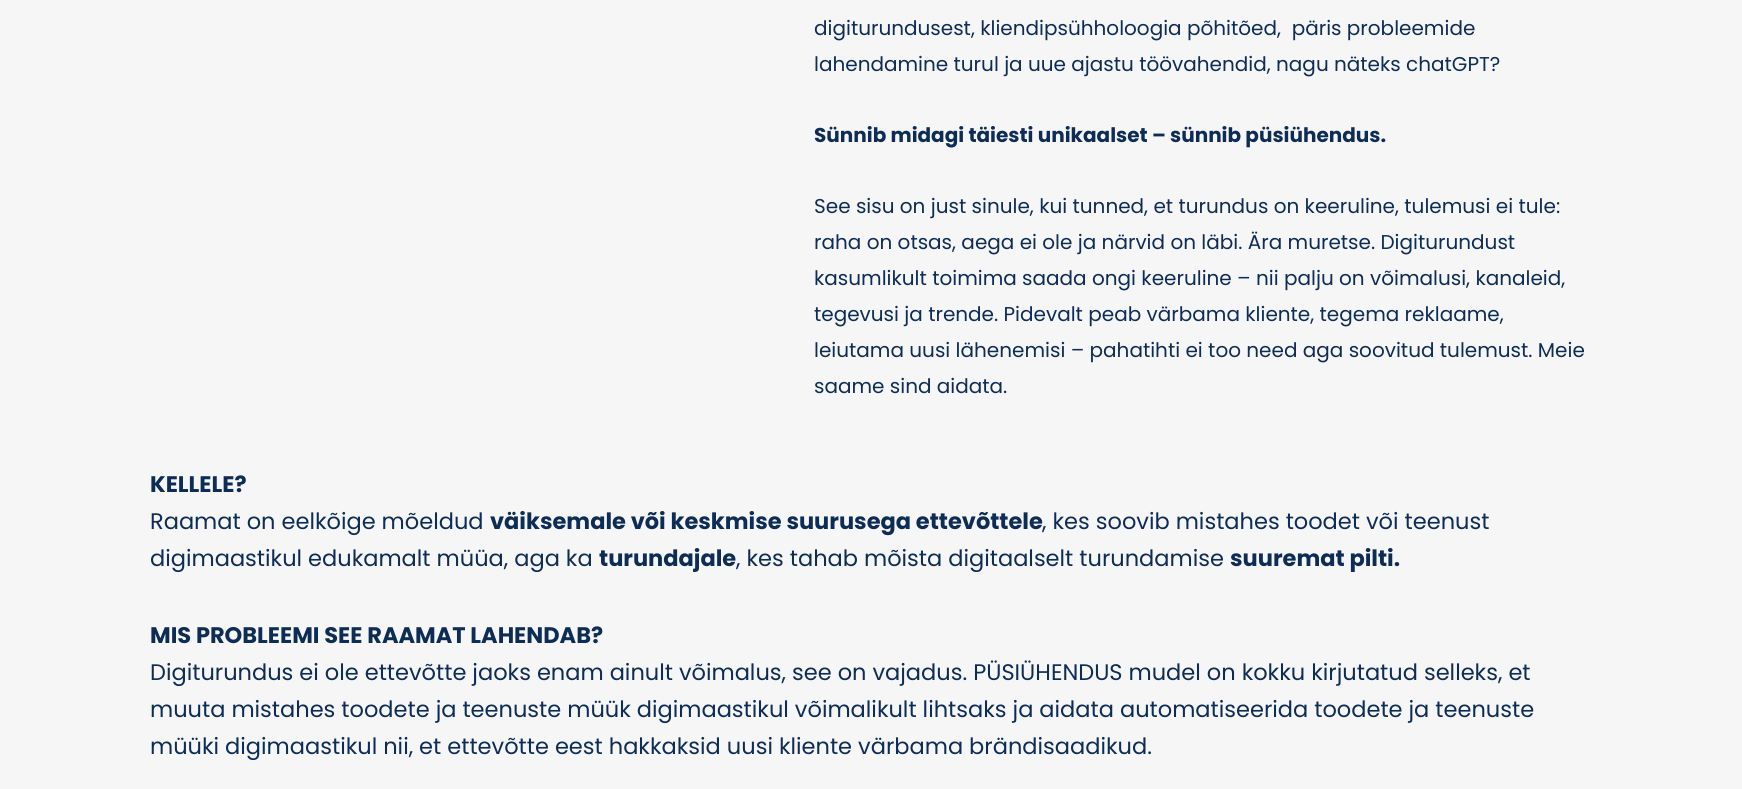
import math
import cairocffi as cairo

surface = cairo.ImageSurface(cairo.FORMAT_RGB24, 1742, 789)
cr = cairo.Context(surface)
options = cairo.FontOptions()
options.set_hint_metrics(cairo.HINT_METRICS_OFF)
options.set_hint_style(cairo.HINT_STYLE_NONE)
cr.set_font_options(options)
cr.set_miter_limit(4)


def use_color(code):
    cr.set_source_rgb(*(v / 255 for v in bytes.fromhex(code[-6:])))


use_color("#f6f6f6")
cr.paint()
cr.select_font_face("Poppins")
cr.set_font_size(20)
use_color("#0d2c56")
cr.move_to(814, 35)
cr.show_text("digiturundusest, kliendipsühholoogia põhitõed,  päris probleemide")
cr.move_to(814, 71)
cr.show_text("lahendamine turul ja uue ajastu töövahendid, nagu näteks chatGPT?")
cr.select_font_face("Poppins", cairo.FONT_SLANT_NORMAL, cairo.FONT_WEIGHT_BOLD)
cr.move_to(814, 142)
cr.show_text("Sünnib midagi täiesti unikaalset – sünnib püsiühendus.")
cr.select_font_face("Poppins")
cr.move_to(814, 213)
cr.show_text("See sisu on just sinule, kui tunned, et turundus on keeruline, tulemusi ei tule:")
cr.move_to(814, 249)
cr.show_text("raha on otsas, aega ei ole ja närvid on läbi. Ära muretse. Digiturundust")
cr.move_to(814, 285)
cr.show_text("kasumlikult toimima saada ongi keeruline – nii palju on võimalusi, kanaleid,")
cr.move_to(814, 321)
cr.show_text("tegevusi ja trende. Pidevalt peab värbama kliente, tegema reklaame,")
cr.move_to(814, 357)
cr.show_text("leiutama uusi lähenemisi – pahatihti ei too need aga soovitud tulemust. Meie")
cr.move_to(814, 393)
cr.show_text("saame sind aidata.")
cr.select_font_face("Poppins", cairo.FONT_SLANT_NORMAL, cairo.FONT_WEIGHT_BOLD)
cr.set_font_size(22.5)
cr.move_to(150, 492)
cr.show_text("KELLELE?")
cr.select_font_face("Poppins")
cr.move_to(150, 529)
cr.show_text("Raamat on eelkõige mõeldud")
cr.select_font_face("Poppins", cairo.FONT_SLANT_NORMAL, cairo.FONT_WEIGHT_BOLD)
cr.move_to(490, 529)
cr.show_text("väiksemale või keskmise suurusega ettevõttele")
cr.select_font_face("Poppins")
cr.move_to(1042, 529)
cr.show_text(", kes soovib mistahes toodet või teenust")
cr.move_to(150, 566)
cr.show_text("digimaastikul edukamalt müüa, aga ka")
cr.select_font_face("Poppins", cairo.FONT_SLANT_NORMAL, cairo.FONT_WEIGHT_BOLD)
cr.move_to(599, 566)
cr.show_text("turundajale")
cr.select_font_face("Poppins")
cr.move_to(736, 566)
cr.show_text(", kes tahab mõista digitaalselt turundamise")
cr.select_font_face("Poppins", cairo.FONT_SLANT_NORMAL, cairo.FONT_WEIGHT_BOLD)
cr.move_to(1230, 566)
cr.show_text("suuremat pilti.")
cr.move_to(150, 643)
cr.show_text("MIS PROBLEEMI SEE RAAMAT LAHENDAB?")
cr.select_font_face("Poppins")
cr.move_to(150, 680)
cr.show_text("Digiturundus ei ole ettevõtte jaoks enam ainult võimalus, see on vajadus. PÜSIÜHENDUS mudel on kokku kirjutatud selleks, et")
cr.move_to(150, 717)
cr.show_text("muuta mistahes toodete ja teenuste müük digimaastikul võimalikult lihtsaks ja aidata automatiseerida toodete ja teenuste")
cr.move_to(150, 754)
cr.show_text("müüki digimaastikul nii, et ettevõtte eest hakkaksid uusi kliente värbama brändisaadikud.")
surface.write_to_png("result.png")
